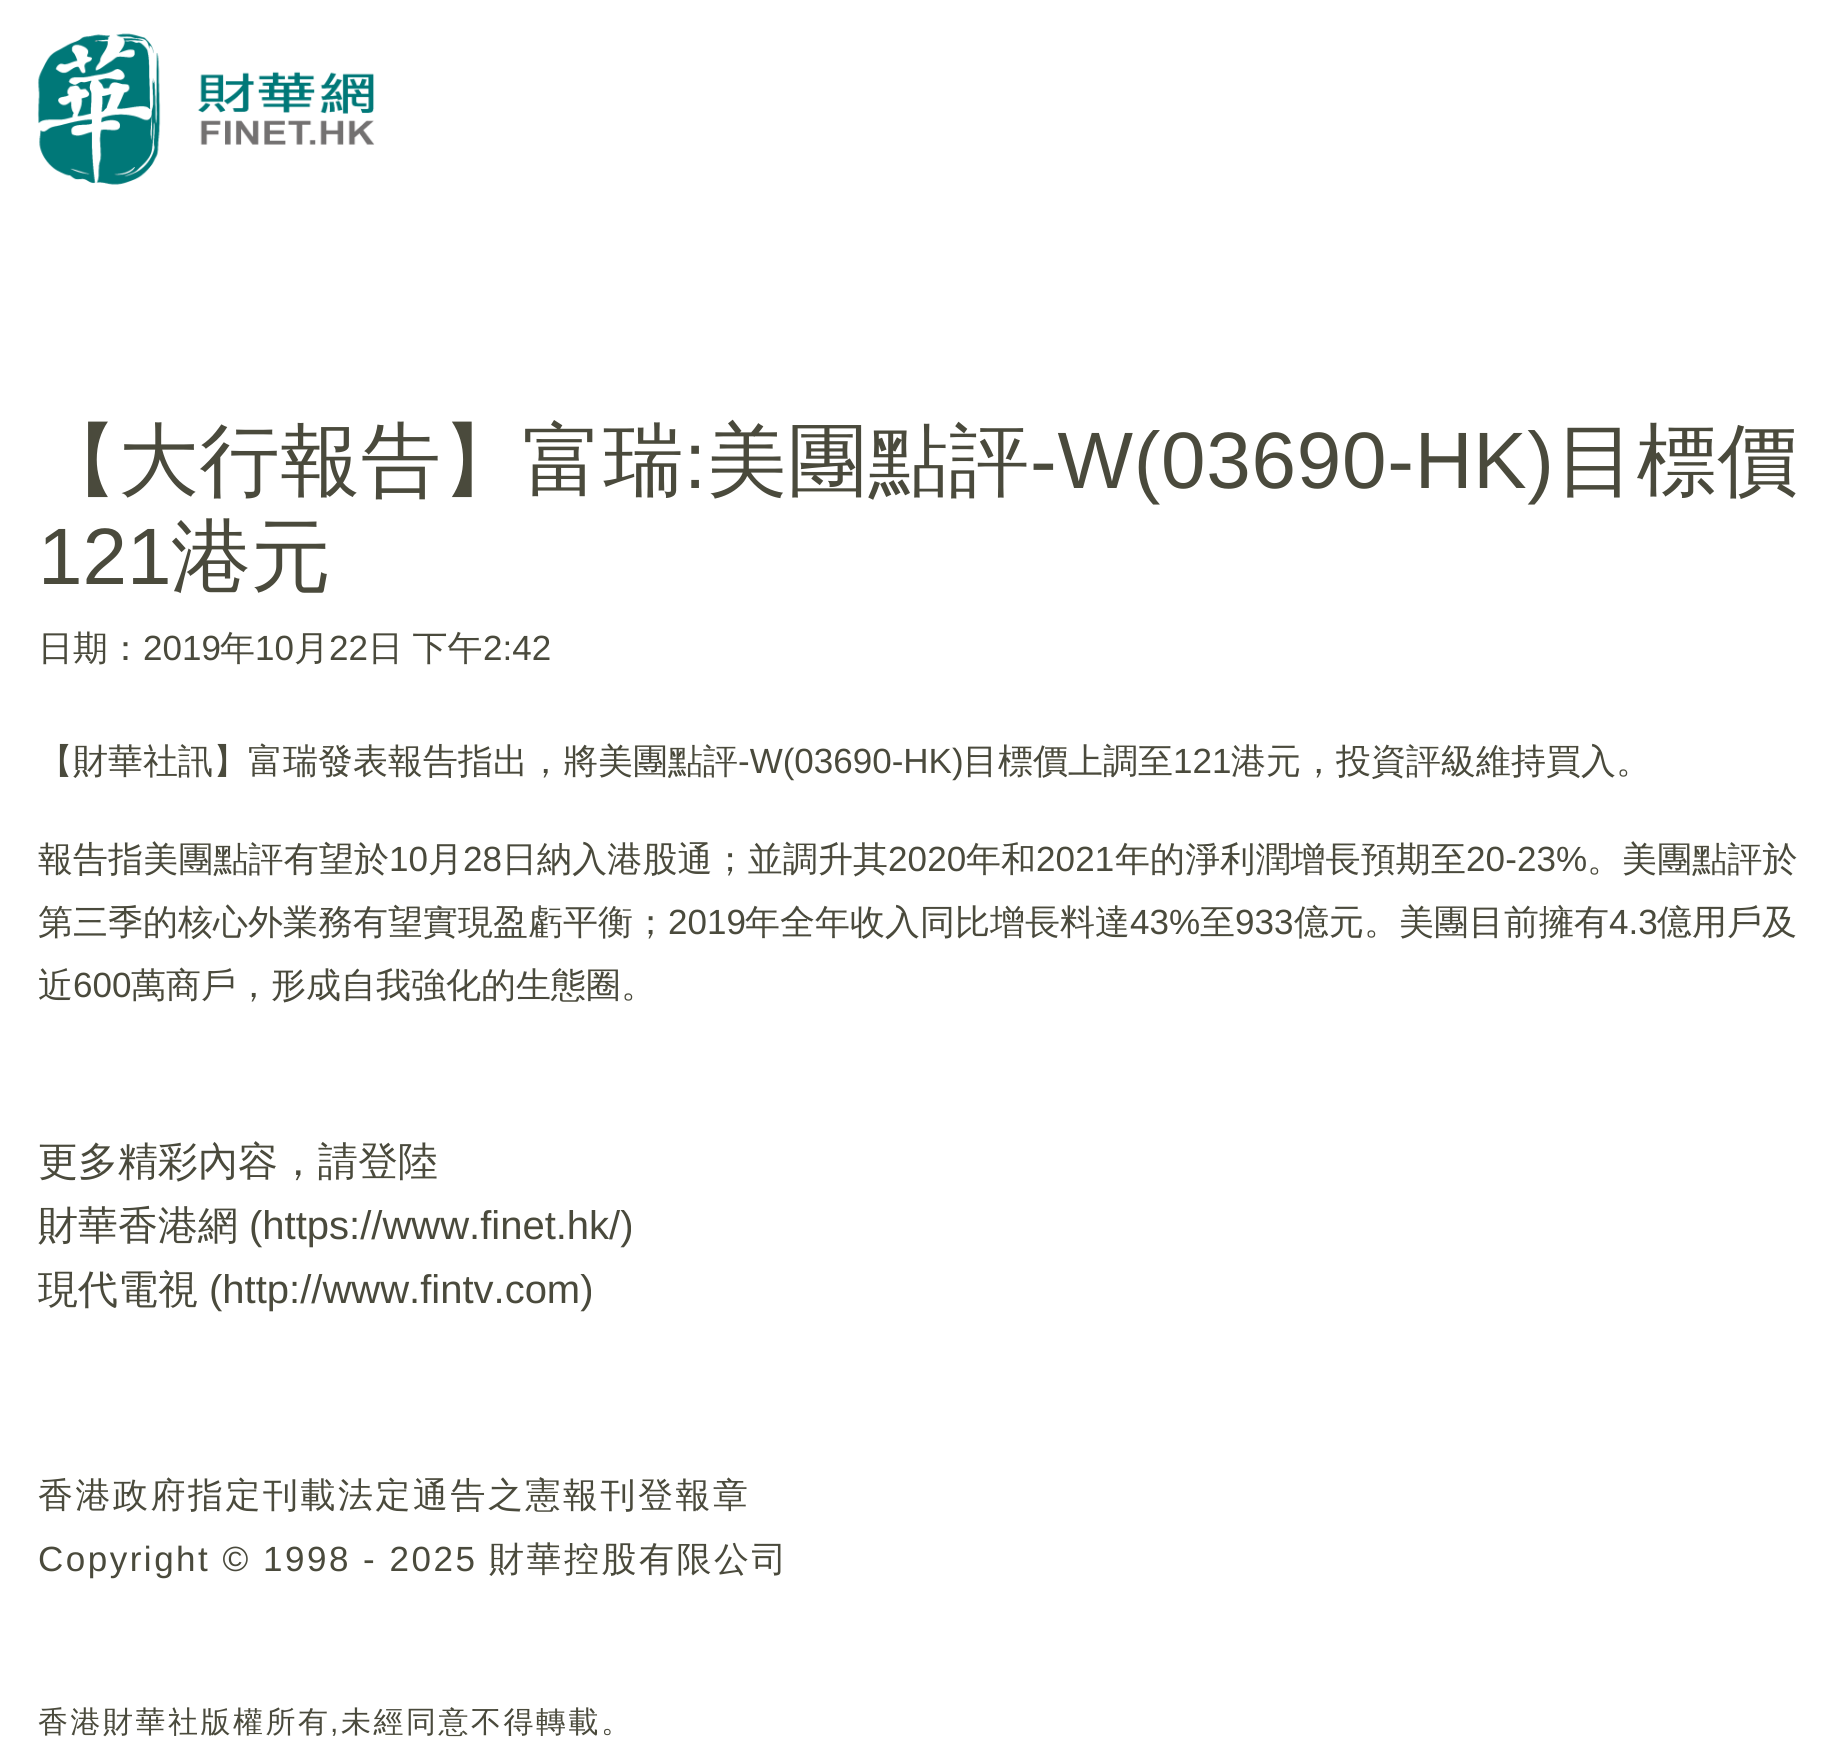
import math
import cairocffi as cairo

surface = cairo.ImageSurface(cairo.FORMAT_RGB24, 1833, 1743)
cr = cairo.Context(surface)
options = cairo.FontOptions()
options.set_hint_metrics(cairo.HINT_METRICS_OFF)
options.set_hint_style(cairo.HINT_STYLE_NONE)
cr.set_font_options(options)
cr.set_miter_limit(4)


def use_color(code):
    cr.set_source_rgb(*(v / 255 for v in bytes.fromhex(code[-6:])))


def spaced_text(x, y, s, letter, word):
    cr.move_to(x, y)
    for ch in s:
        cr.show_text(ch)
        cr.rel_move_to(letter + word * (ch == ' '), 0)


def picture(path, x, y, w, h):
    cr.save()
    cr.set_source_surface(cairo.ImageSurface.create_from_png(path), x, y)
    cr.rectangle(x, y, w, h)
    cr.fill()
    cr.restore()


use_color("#ffffff")
cr.paint()
picture("img1.png", 37, 33, 338, 152)
cr.select_font_face("WenQuanYi Zen Hei Medium")
cr.set_font_size(80)
use_color("#4a4a3c")
spaced_text(38, 488, "【大行報告】富瑞", 0.75, 0)
cr.select_font_face("Liberation Sans")
spaced_text(684, 488, ":", 0.75, 0)
cr.select_font_face("WenQuanYi Zen Hei Medium")
spaced_text(707, 488, "美團點評", 0.75, 0)
cr.select_font_face("Liberation Sans")
spaced_text(1030, 488, "-W(03690-HK)", 0.75, 0)
cr.select_font_face("WenQuanYi Zen Hei Medium")
spaced_text(1556, 488, "目標價", 0.75, 0)
cr.select_font_face("Liberation Sans")
cr.move_to(38, 584)
cr.show_text("121")
cr.select_font_face("WenQuanYi Zen Hei Medium")
cr.move_to(171, 584)
cr.show_text("港元")
cr.set_font_size(35)
cr.move_to(38, 660)
cr.show_text("日期：")
cr.select_font_face("Liberation Sans")
cr.move_to(143, 660)
cr.show_text("2019")
cr.select_font_face("WenQuanYi Zen Hei Medium")
cr.move_to(220, 660)
cr.show_text("年")
cr.select_font_face("Liberation Sans")
cr.move_to(255, 660)
cr.show_text("10")
cr.select_font_face("WenQuanYi Zen Hei Medium")
cr.move_to(294, 660)
cr.show_text("月")
cr.select_font_face("Liberation Sans")
cr.move_to(329, 660)
cr.show_text("22")
cr.select_font_face("WenQuanYi Zen Hei Medium")
spaced_text(368, 660, "日 下午", 0, -1)
cr.select_font_face("Liberation Sans")
cr.move_to(483, 660)
cr.show_text("2:42")
cr.select_font_face("WenQuanYi Zen Hei Medium")
cr.move_to(38, 773)
cr.show_text("【財華社訊】富瑞發表報告指出，將美團點評")
cr.select_font_face("Liberation Sans")
cr.move_to(738, 773)
cr.show_text("-W(03690-HK)")
cr.select_font_face("WenQuanYi Zen Hei Medium")
cr.move_to(963, 773)
cr.show_text("目標價上調至")
cr.select_font_face("Liberation Sans")
cr.move_to(1173, 773)
cr.show_text("121")
cr.select_font_face("WenQuanYi Zen Hei Medium")
cr.move_to(1231, 773)
cr.show_text("港元，投資評級維持買入。")
spaced_text(38, 871, "報告指美團點評有望於", 0.1, 0)
cr.select_font_face("Liberation Sans")
spaced_text(389, 871, "10", 0.1, 0)
cr.select_font_face("WenQuanYi Zen Hei Medium")
spaced_text(428, 871, "月", 0.1, 0)
cr.select_font_face("Liberation Sans")
spaced_text(463, 871, "28", 0.1, 0)
cr.select_font_face("WenQuanYi Zen Hei Medium")
spaced_text(502, 871, "日納入港股通；並調升其", 0.1, 0)
cr.select_font_face("Liberation Sans")
spaced_text(888, 871, "2020", 0.1, 0)
cr.select_font_face("WenQuanYi Zen Hei Medium")
spaced_text(966, 871, "年和", 0.1, 0)
cr.select_font_face("Liberation Sans")
spaced_text(1036, 871, "2021", 0.1, 0)
cr.select_font_face("WenQuanYi Zen Hei Medium")
spaced_text(1115, 871, "年的淨利潤增長預期至", 0.1, 0)
cr.select_font_face("Liberation Sans")
spaced_text(1466, 871, "20-23%", 0.1, 0)
cr.select_font_face("WenQuanYi Zen Hei Medium")
spaced_text(1587, 871, "。美團點評於", 0.1, 0)
cr.move_to(38, 934)
cr.show_text("第三季的核心外業務有望實現盈虧平衡；")
cr.select_font_face("Liberation Sans")
cr.move_to(668, 934)
cr.show_text("2019")
cr.select_font_face("WenQuanYi Zen Hei Medium")
cr.move_to(745, 934)
cr.show_text("年全年收入同比增長料達")
cr.select_font_face("Liberation Sans")
cr.move_to(1130, 934)
cr.show_text("43%")
cr.select_font_face("WenQuanYi Zen Hei Medium")
cr.move_to(1200, 934)
cr.show_text("至")
cr.select_font_face("Liberation Sans")
cr.move_to(1235, 934)
cr.show_text("933")
cr.select_font_face("WenQuanYi Zen Hei Medium")
cr.move_to(1294, 934)
cr.show_text("億元。美團目前擁有")
cr.select_font_face("Liberation Sans")
cr.move_to(1609, 934)
cr.show_text("4.3")
cr.select_font_face("WenQuanYi Zen Hei Medium")
cr.move_to(1657, 934)
cr.show_text("億用戶及")
cr.move_to(38, 997)
cr.show_text("近")
cr.select_font_face("Liberation Sans")
cr.move_to(73, 997)
cr.show_text("600")
cr.select_font_face("WenQuanYi Zen Hei Medium")
cr.move_to(131, 997)
cr.show_text("萬商戶，形成自我強化的生態圈。")
cr.set_font_size(40)
cr.move_to(38, 1175)
cr.show_text("更多精彩內容，請登陸")
cr.move_to(38, 1239)
cr.show_text("財華香港網")
cr.select_font_face("Liberation Sans")
cr.move_to(249, 1239)
cr.show_text("(https://www.finet.hk/)")
cr.select_font_face("WenQuanYi Zen Hei Medium")
cr.move_to(38, 1303)
cr.show_text("現代電視")
cr.select_font_face("Liberation Sans")
cr.move_to(209, 1303)
cr.show_text("(http://www.fintv.com)")
cr.select_font_face("WenQuanYi Zen Hei Medium")
cr.set_font_size(35)
spaced_text(38, 1507, "香港政府指定刊載法定通告之憲報刊登報章", 2.5, 0)
cr.select_font_face("Liberation Sans")
spaced_text(38, 1571, "Copyright © 1998 - 2025", 2.5, 0)
cr.select_font_face("WenQuanYi Zen Hei Medium")
spaced_text(489, 1571, "財華控股有限公司", 2.5, 0)
cr.set_font_size(30)
spaced_text(38, 1732, "香港財華社版權所有", 2.5, 0)
cr.select_font_face("Liberation Sans")
spaced_text(330, 1732, ",", 2.5, 0)
cr.select_font_face("WenQuanYi Zen Hei Medium")
spaced_text(341, 1732, "未經同意不得轉載。", 2.5, 0)
surface.write_to_png("result.png")
